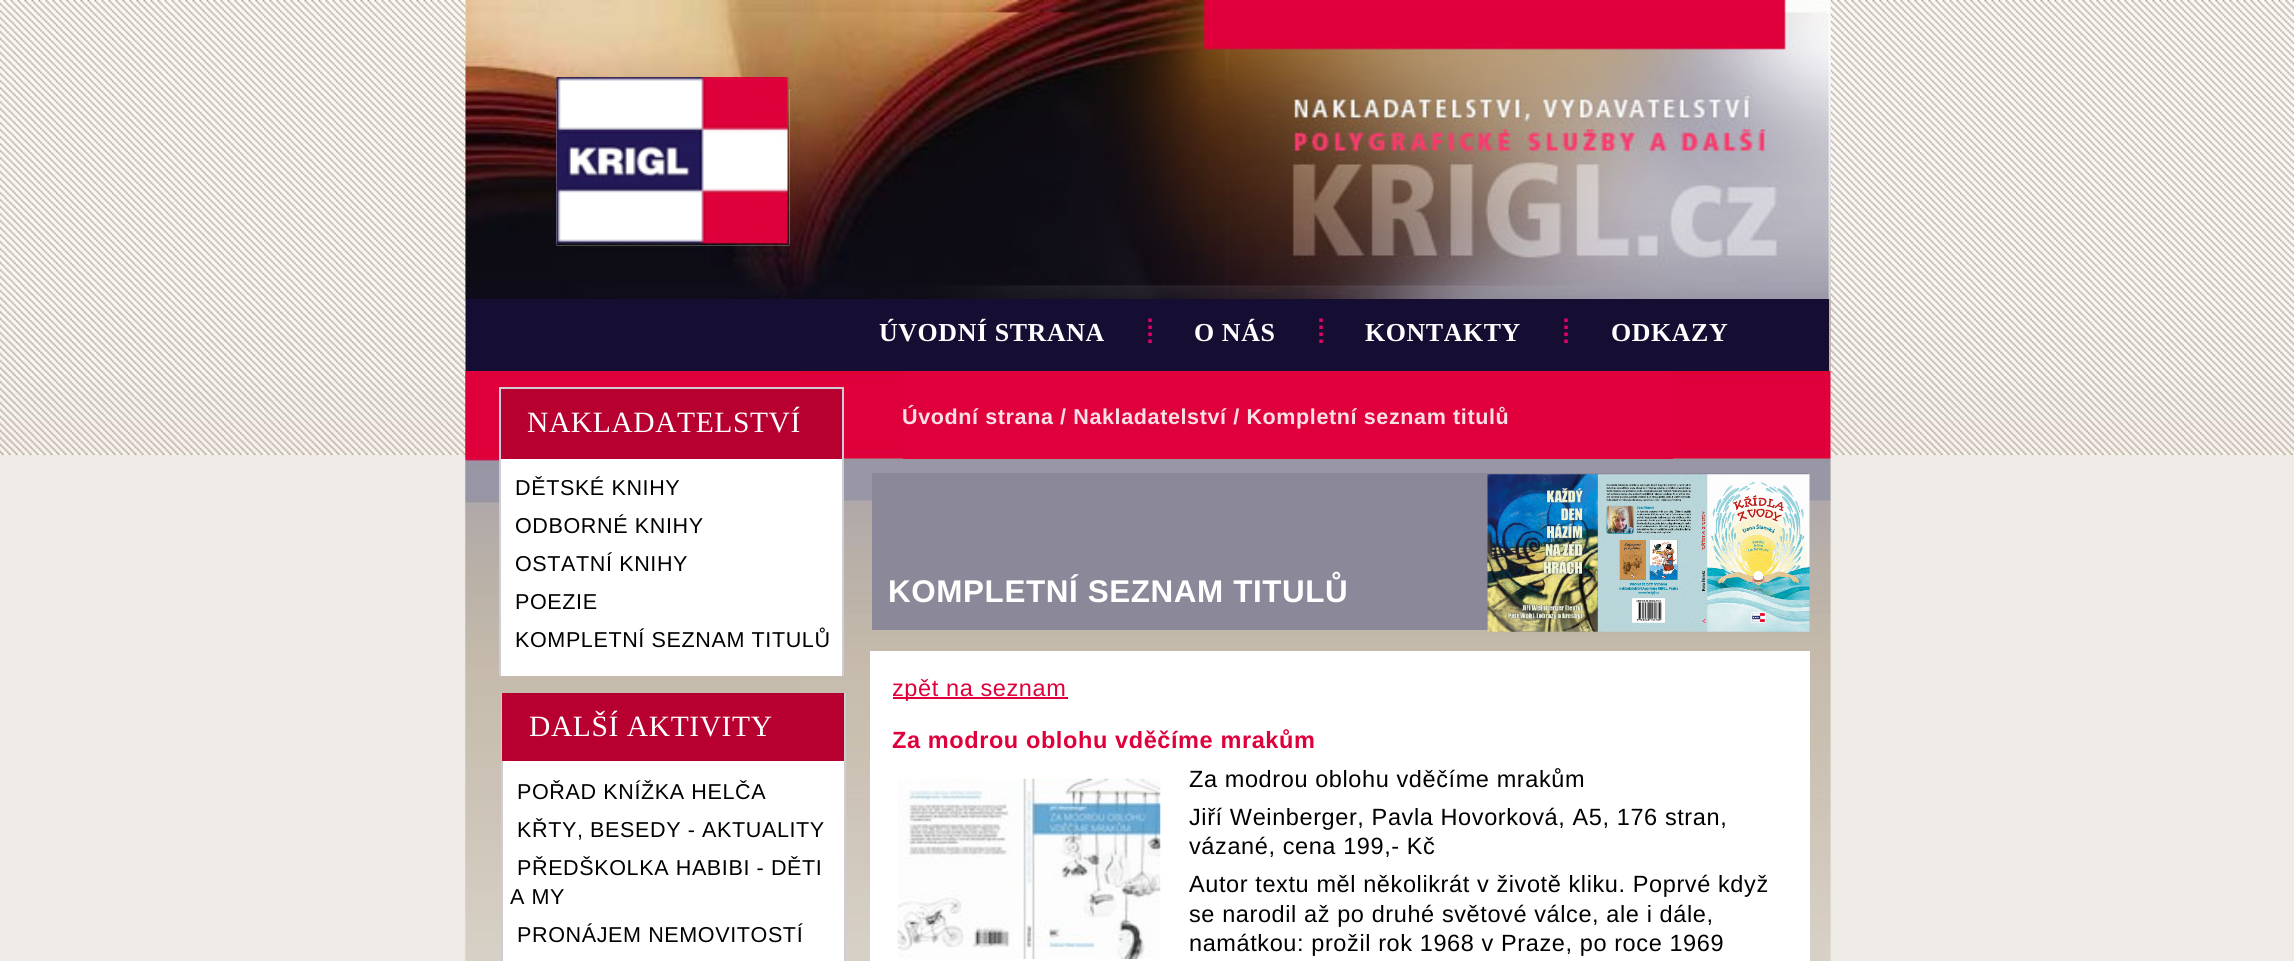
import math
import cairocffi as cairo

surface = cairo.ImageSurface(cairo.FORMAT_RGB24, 2294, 961)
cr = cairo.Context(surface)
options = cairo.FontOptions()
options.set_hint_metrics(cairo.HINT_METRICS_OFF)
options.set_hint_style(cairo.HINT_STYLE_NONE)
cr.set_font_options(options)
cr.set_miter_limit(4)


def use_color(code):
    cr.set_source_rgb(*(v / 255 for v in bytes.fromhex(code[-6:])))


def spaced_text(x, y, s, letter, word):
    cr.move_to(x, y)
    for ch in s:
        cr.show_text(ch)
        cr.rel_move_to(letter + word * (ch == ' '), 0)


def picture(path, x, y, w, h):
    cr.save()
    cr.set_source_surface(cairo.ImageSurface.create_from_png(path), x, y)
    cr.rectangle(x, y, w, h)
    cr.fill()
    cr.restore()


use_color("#eeebe6")
cr.paint()
picture("img1.png", 0, 0, 2294, 455)
use_color("#e7e2dc")
cr.rectangle(1830, 0, 1, 961)
cr.fill()
picture("img2.png", 465, 0, 1366, 961)
picture("img3.png", 465, 0, 1366, 300)
picture("img4.png", 556, 77, 234, 168)
use_color("#150d32")
cr.rectangle(466, 299, 1363, 72)
cr.fill()
use_color("#c3b8a9")
cr.rectangle(1829, 299, 2, 72)
cr.fill()
cr.select_font_face("Liberation Serif", cairo.FONT_SLANT_NORMAL, cairo.FONT_WEIGHT_BOLD)
cr.set_font_size(25.9)
use_color("#ffffff")
spaced_text(879, 341, "ÚVODNÍ STRANA", 0.6, 0)
cr.new_path()
cr.move_to(1150, 318.5)
cr.line_to(1150, 346.5)
use_color("#df0068")
cr.set_line_width(3.5)
cr.set_dash([3.5, 3.5])
cr.stroke()
use_color("#ffffff")
spaced_text(1194, 341, "O NÁS", 0.6, 0)
cr.new_path()
cr.move_to(1321, 318.5)
cr.line_to(1321, 346.5)
use_color("#df0068")
cr.stroke()
use_color("#ffffff")
spaced_text(1365, 341, "KONTAKTY", 0.6, 0)
cr.new_path()
cr.move_to(1566, 318.5)
cr.line_to(1566, 346.5)
use_color("#df0068")
cr.stroke()
use_color("#ffffff")
spaced_text(1611, 341, "ODKAZY", 0.6, 0)
picture("img5.png", 465, 371, 335, 590)
cr.rectangle(501, 459, 341, 217)
cr.fill()
use_color("#ceccd4")
cr.rectangle(499, 387, 345, 2)
cr.fill()
cr.rectangle(842, 387, 2, 289)
cr.fill()
cr.rectangle(499, 387, 2, 289)
cr.fill()
use_color("#b70030")
cr.rectangle(501, 389, 341, 70)
cr.fill()
cr.select_font_face("Liberation Serif")
cr.set_font_size(29.5)
use_color("#ffffff")
spaced_text(527, 432, "NAKLADATELSTVÍ", 0.6, 0)
cr.select_font_face("Liberation Sans")
cr.set_font_size(21.55)
use_color("#000000")
spaced_text(515, 495, "DĚTSKÉ KNIHY", 0.6, 0)
spaced_text(515, 533, "ODBORNÉ KNIHY", 0.6, 0)
spaced_text(515, 571, "OSTATNÍ KNIHY", 0.6, 0)
spaced_text(515, 609, "POEZIE", 0.6, 0)
spaced_text(515, 647, "KOMPLETNÍ SEZNAM TITULŮ", 0.6, 0)
use_color("#ffffff")
cr.rectangle(503, 761, 341, 200)
cr.fill()
use_color("#ceccd4")
cr.rectangle(844, 693, 2, 268)
cr.fill()
cr.rectangle(501, 693, 2, 268)
cr.fill()
use_color("#b70030")
cr.rectangle(502, 693, 342, 68)
cr.fill()
cr.select_font_face("Liberation Serif")
cr.set_font_size(29.5)
use_color("#ffffff")
spaced_text(529, 736, "DALŠÍ AKTIVITY", 0.6, 0)
cr.select_font_face("Liberation Sans")
cr.set_font_size(21.55)
use_color("#000000")
spaced_text(517, 799, "POŘAD KNÍŽKA HELČA", 0.6, 0)
spaced_text(517, 837, "KŘTY, BESEDY - AKTUALITY", 0.6, 0)
spaced_text(517, 875, "PŘEDŠKOLKA HABIBI - DĚTI", 0.6, 0)
spaced_text(510, 904, "A MY", 0.6, 0)
spaced_text(517, 942, "PRONÁJEM NEMOVITOSTÍ", 0.6, 0)
use_color("#e0003c")
cr.rectangle(903, 371, 770, 88)
cr.fill()
cr.select_font_face("Liberation Sans", cairo.FONT_SLANT_NORMAL, cairo.FONT_WEIGHT_BOLD)
use_color("#fadfe6")
spaced_text(902, 424, "Úvodní strana / Nakladatelství / Kompletní seznam titulů", 0.6, 0)
use_color("#8b8899")
cr.rectangle(872, 473, 936, 157)
cr.fill()
cr.set_font_size(31.4)
use_color("#ffffff")
spaced_text(888, 602, "KOMPLETNÍ SEZNAM TITULŮ", 0.6, 0)
picture("img7.png", 1597, 474, 213, 158)
picture("img6.png", 1487, 474, 111, 158)
cr.rectangle(870, 651, 940, 310)
cr.fill()
use_color("#df003b")
cr.rectangle(893, 697, 175, 2)
cr.fill()
cr.select_font_face("Liberation Sans")
cr.set_font_size(23.5)
spaced_text(892, 696, "zpět na seznam", 0.6, 0)
cr.select_font_face("Liberation Sans", cairo.FONT_SLANT_NORMAL, cairo.FONT_WEIGHT_BOLD)
spaced_text(892, 748, "Za modrou oblohu vděčíme mrakům", 0.6, 0)
picture("img8.png", 897, 778, 264, 181)
cr.select_font_face("Liberation Sans")
use_color("#000000")
spaced_text(1189, 787, "Za modrou oblohu vděčíme mrakům", 0.6, 0)
spaced_text(1189, 825, "Jiří Weinberger, Pavla Hovorková, A5, 176 stran,", 0.6, 0)
spaced_text(1189, 854, "vázané, cena 199,- Kč", 0.6, 0)
spaced_text(1189, 892, "Autor textu měl několikrát v životě kliku. Poprvé když", 0.6, 0)
spaced_text(1189, 922, "se narodil až po druhé světové válce, ale i dále,", 0.6, 0)
spaced_text(1189, 951, "namátkou: prožil rok 1968 v Praze, po roce 1969", 0.6, 0)
surface.write_to_png("result.png")
